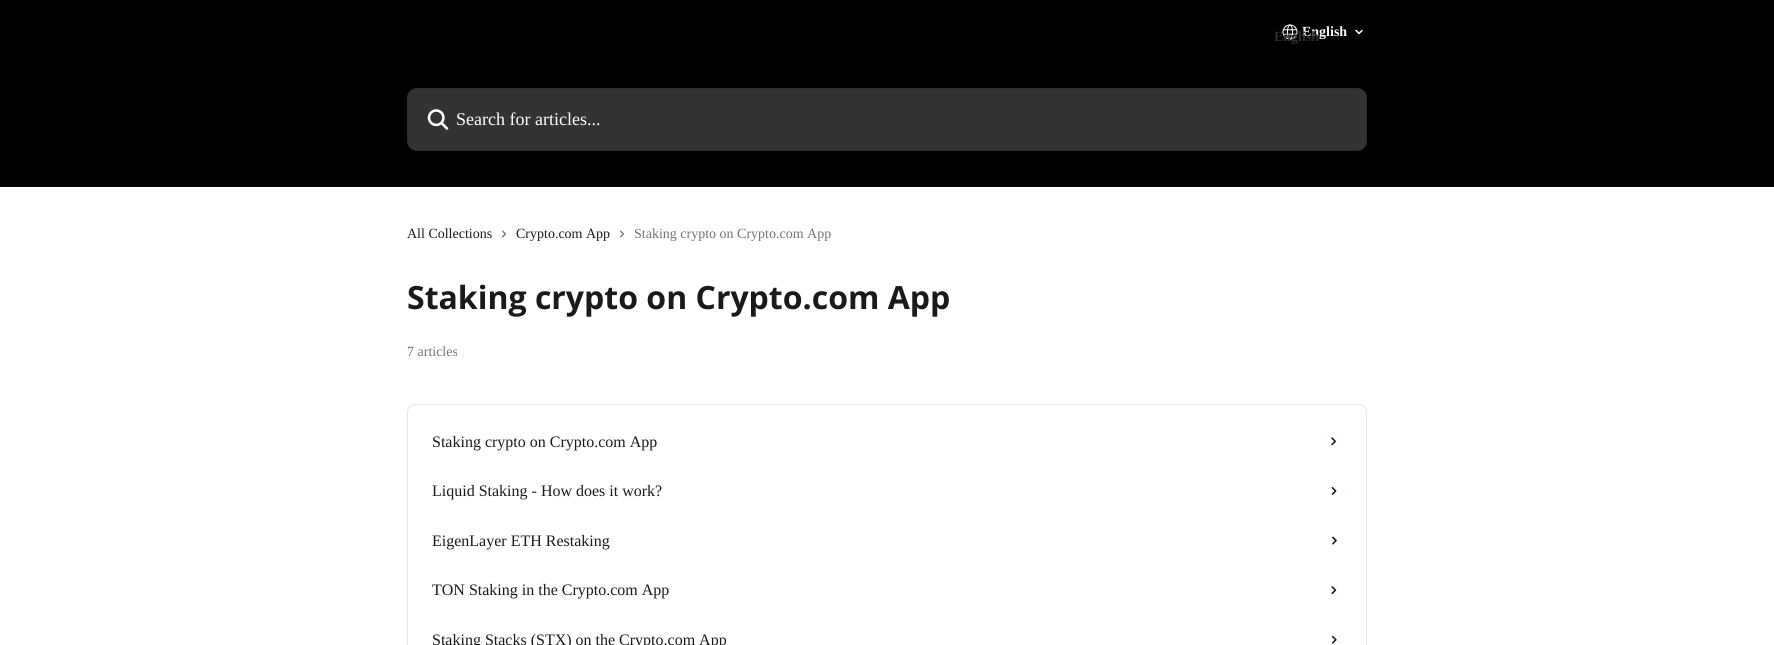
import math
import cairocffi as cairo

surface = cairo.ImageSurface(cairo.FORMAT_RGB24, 1774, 645)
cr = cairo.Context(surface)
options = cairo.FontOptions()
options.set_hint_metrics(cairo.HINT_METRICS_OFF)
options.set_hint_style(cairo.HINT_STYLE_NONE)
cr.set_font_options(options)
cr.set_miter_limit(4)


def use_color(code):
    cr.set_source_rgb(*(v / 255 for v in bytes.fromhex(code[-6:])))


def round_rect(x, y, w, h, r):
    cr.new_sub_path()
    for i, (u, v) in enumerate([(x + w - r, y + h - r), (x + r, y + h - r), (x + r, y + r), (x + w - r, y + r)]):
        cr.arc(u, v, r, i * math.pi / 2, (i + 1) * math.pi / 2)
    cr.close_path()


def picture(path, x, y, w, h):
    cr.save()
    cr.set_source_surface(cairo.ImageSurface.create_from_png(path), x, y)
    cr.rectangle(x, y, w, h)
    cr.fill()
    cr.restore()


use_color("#ffffff")
cr.paint()
use_color("#000000")
cr.rectangle(0, 0, 1774, 187)
cr.fill()
picture("img1.png", 1282, 24, 16, 16)
cr.select_font_face("Liberation Serif", cairo.FONT_SLANT_NORMAL, cairo.FONT_WEIGHT_BOLD)
cr.set_font_size(14)
use_color("#ffffff")
cr.move_to(1302, 36)
cr.show_text("English")
use_color("#2f2f2f")
cr.move_to(1274, 41)
cr.show_text("English")
cr.new_path()
cr.move_to(1356, 30.5)
cr.line_to(1359, 33.5)
cr.line_to(1362, 30.5)
use_color("#ffffff")
cr.set_line_width(1.5)
cr.set_line_cap(cairo.LINE_CAP_ROUND)
cr.set_line_join(cairo.LINE_JOIN_ROUND)
cr.stroke()
use_color("#333333")
round_rect(407, 88, 960, 63, 10)
cr.fill()
round_rect(407.5, 88.5, 959, 62, 9.5)
cr.set_source_rgba(0, 0, 0, 0.08)
cr.set_line_width(1)
cr.set_line_cap(cairo.LINE_CAP_BUTT)
cr.set_line_join(cairo.LINE_JOIN_MITER)
cr.stroke()
picture("img2.png", 427, 109, 22, 21)
cr.select_font_face("Liberation Serif")
cr.set_font_size(18)
use_color("#ffffff")
cr.move_to(456, 125)
cr.show_text("Search for articles...")
cr.set_font_size(14)
use_color("#1a1a1a")
cr.move_to(407, 238)
cr.show_text("All Collections")
picture("img3.png", 502, 230, 4, 8)
cr.move_to(516, 238)
cr.show_text("Crypto.com App")
picture("img3.png", 620, 230, 4, 8)
use_color("#737373")
cr.move_to(634, 238)
cr.show_text("Staking crypto on Crypto.com App")
cr.select_font_face("Open Sans", cairo.FONT_SLANT_NORMAL, cairo.FONT_WEIGHT_BOLD)
cr.set_font_size(32)
use_color("#1a1a1a")
cr.move_to(407, 309)
cr.show_text("Staking crypto on Crypto.com App")
cr.select_font_face("Liberation Serif")
cr.set_font_size(14)
use_color("#737373")
cr.move_to(407, 356)
cr.show_text("7 articles")
round_rect(407.5, 404.5, 959, 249, 7.5)
use_color("#e6e6e6")
cr.stroke()
cr.set_font_size(16)
use_color("#1a1a1a")
cr.move_to(432, 447)
cr.show_text("Staking crypto on Crypto.com App")
picture("img4.png", 1331, 437, 5, 9)
cr.move_to(432, 496)
cr.show_text("Liquid Staking - How does it work?")
picture("img5.png", 1331, 487, 6, 8)
cr.move_to(432, 546)
cr.show_text("EigenLayer ETH Restaking")
picture("img6.png", 1332, 536, 5, 9)
cr.move_to(432, 595)
cr.show_text("TON Staking in the Crypto.com App")
picture("img7.png", 1331, 586, 6, 9)
cr.move_to(432, 645)
cr.show_text("Staking Stacks (STX) on the Crypto.com App")
picture("img8.png", 1331, 635, 6, 9)
surface.write_to_png("result.png")
